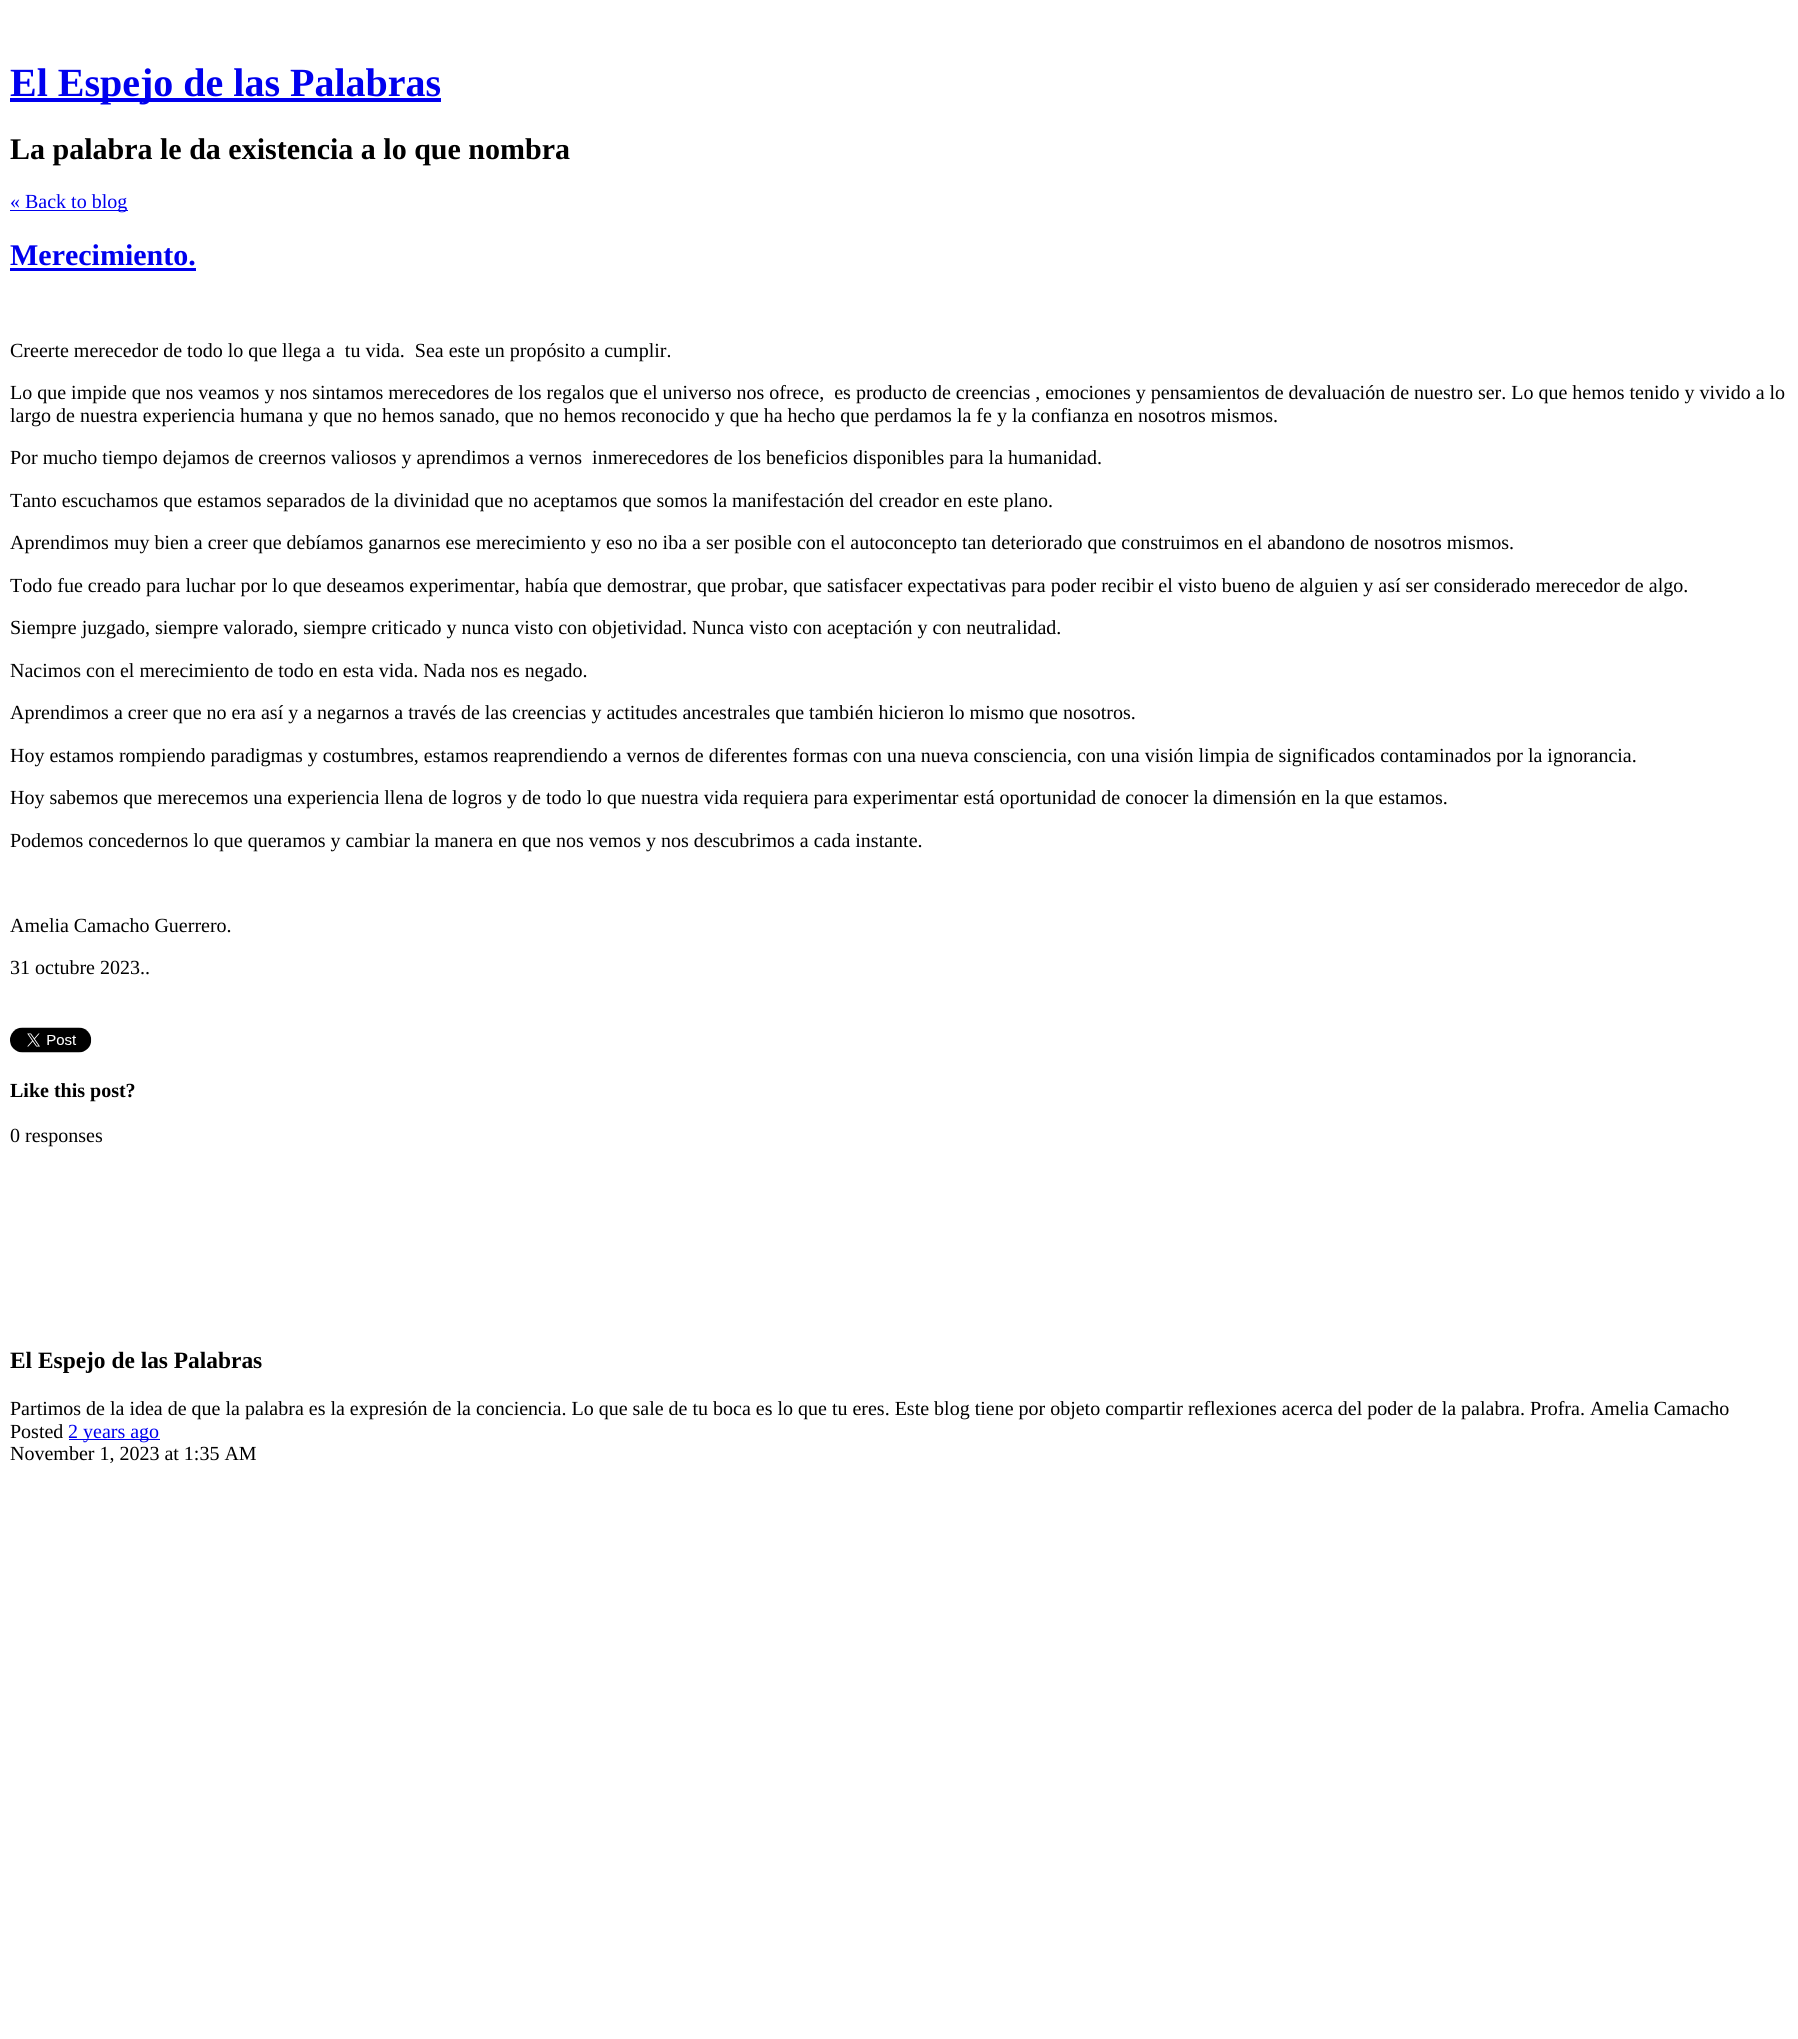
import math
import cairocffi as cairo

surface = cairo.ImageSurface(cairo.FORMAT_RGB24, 1798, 2039)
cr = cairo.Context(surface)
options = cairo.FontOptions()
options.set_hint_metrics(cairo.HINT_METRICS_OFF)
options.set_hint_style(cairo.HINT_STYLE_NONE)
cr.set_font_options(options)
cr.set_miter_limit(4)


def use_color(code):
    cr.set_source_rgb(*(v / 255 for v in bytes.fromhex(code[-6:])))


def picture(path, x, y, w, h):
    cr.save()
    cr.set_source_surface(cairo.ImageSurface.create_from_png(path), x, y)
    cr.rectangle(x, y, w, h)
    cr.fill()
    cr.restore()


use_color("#ffffff")
cr.paint()
use_color("#0000ee")
cr.rectangle(10, 98, 431, 4)
cr.fill()
cr.select_font_face("Liberation Serif", cairo.FONT_SLANT_NORMAL, cairo.FONT_WEIGHT_BOLD)
cr.set_font_size(40)
cr.move_to(10, 96)
cr.show_text("El Espejo de las Palabras")
cr.set_font_size(30)
use_color("#000000")
cr.move_to(10, 159)
cr.show_text("La palabra le da existencia a lo que nombra")
use_color("#0000ee")
cr.rectangle(10, 210, 118, 1)
cr.fill()
cr.select_font_face("Liberation Serif")
cr.set_font_size(20)
cr.move_to(10, 208)
cr.show_text("« Back to blog")
cr.select_font_face("Liberation Serif", cairo.FONT_SLANT_NORMAL, cairo.FONT_WEIGHT_BOLD)
cr.set_font_size(30)
cr.move_to(10, 265)
cr.show_text("Merecimiento.")
cr.rectangle(10, 268, 186, 3)
cr.fill()
cr.select_font_face("Liberation Serif")
cr.set_font_size(20)
use_color("#000000")
cr.move_to(10, 357)
cr.show_text("Creerte merecedor de todo lo que llega a  tu vida.  Sea este un propósito a cumplir.")
cr.move_to(10, 399)
cr.show_text("Lo que impide que nos veamos y nos sintamos merecedores de los regalos que el universo nos ofrece,  es producto de creencias , emociones y pensamientos de devaluación de nuestro ser. Lo que hemos tenido y vivido a lo")
cr.move_to(10, 422)
cr.show_text("largo de nuestra experiencia humana y que no hemos sanado, que no hemos reconocido y que ha hecho que perdamos la fe y la confianza en nosotros mismos.")
cr.move_to(10, 464)
cr.show_text("Por mucho tiempo dejamos de creernos valiosos y aprendimos a vernos  inmerecedores de los beneficios disponibles para la humanidad.")
cr.move_to(10, 507)
cr.show_text("Tanto escuchamos que estamos separados de la divinidad que no aceptamos que somos la manifestación del creador en este plano.")
cr.move_to(10, 549)
cr.show_text("Aprendimos muy bien a creer que debíamos ganarnos ese merecimiento y eso no iba a ser posible con el autoconcepto tan deteriorado que construimos en el abandono de nosotros mismos.")
cr.move_to(10, 592)
cr.show_text("Todo fue creado para luchar por lo que deseamos experimentar, había que demostrar, que probar, que satisfacer expectativas para poder recibir el visto bueno de alguien y así ser considerado merecedor de algo.")
cr.move_to(10, 634)
cr.show_text("Siempre juzgado, siempre valorado, siempre criticado y nunca visto con objetividad. Nunca visto con aceptación y con neutralidad.")
cr.move_to(10, 677)
cr.show_text("Nacimos con el merecimiento de todo en esta vida. Nada nos es negado.")
cr.move_to(10, 719)
cr.show_text("Aprendimos a creer que no era así y a negarnos a través de las creencias y actitudes ancestrales que también hicieron lo mismo que nosotros.")
cr.move_to(10, 762)
cr.show_text("Hoy estamos rompiendo paradigmas y costumbres, estamos reaprendiendo a vernos de diferentes formas con una nueva consciencia, con una visión limpia de significados contaminados por la ignorancia.")
cr.move_to(10, 804)
cr.show_text("Hoy sabemos que merecemos una experiencia llena de logros y de todo lo que nuestra vida requiera para experimentar está oportunidad de conocer la dimensión en la que estamos.")
cr.move_to(10, 847)
cr.show_text("Podemos concedernos lo que queramos y cambiar la manera en que nos vemos y nos descubrimos a cada instante.")
cr.move_to(10, 932)
cr.show_text("Amelia Camacho Guerrero.")
cr.move_to(10, 974)
cr.show_text("31 octubre 2023..")
picture("img1.png", 10, 1027, 82, 26)
cr.select_font_face("Liberation Serif", cairo.FONT_SLANT_NORMAL, cairo.FONT_WEIGHT_BOLD)
cr.move_to(10, 1097)
cr.show_text("Like this post?")
cr.select_font_face("Liberation Serif")
cr.move_to(10, 1142)
cr.show_text("0 responses")
cr.select_font_face("Liberation Serif", cairo.FONT_SLANT_NORMAL, cairo.FONT_WEIGHT_BOLD)
cr.set_font_size(23.4)
cr.move_to(10, 1368)
cr.show_text("El Espejo de las Palabras")
cr.select_font_face("Liberation Serif")
cr.set_font_size(20)
cr.move_to(10, 1415)
cr.show_text("Partimos de la idea de que la palabra es la expresión de la conciencia. Lo que sale de tu boca es lo que tu eres. Este blog tiene por objeto compartir reflexiones acerca del poder de la palabra. Profra. Amelia Camacho")
cr.move_to(10, 1438)
cr.show_text("Posted")
use_color("#0000ee")
cr.rectangle(69, 1439, 91, 1)
cr.fill()
cr.move_to(68, 1438)
cr.show_text("2 years ago")
use_color("#000000")
cr.move_to(10, 1460)
cr.show_text("November 1, 2023 at 1:35 AM")
surface.write_to_png("result.png")
